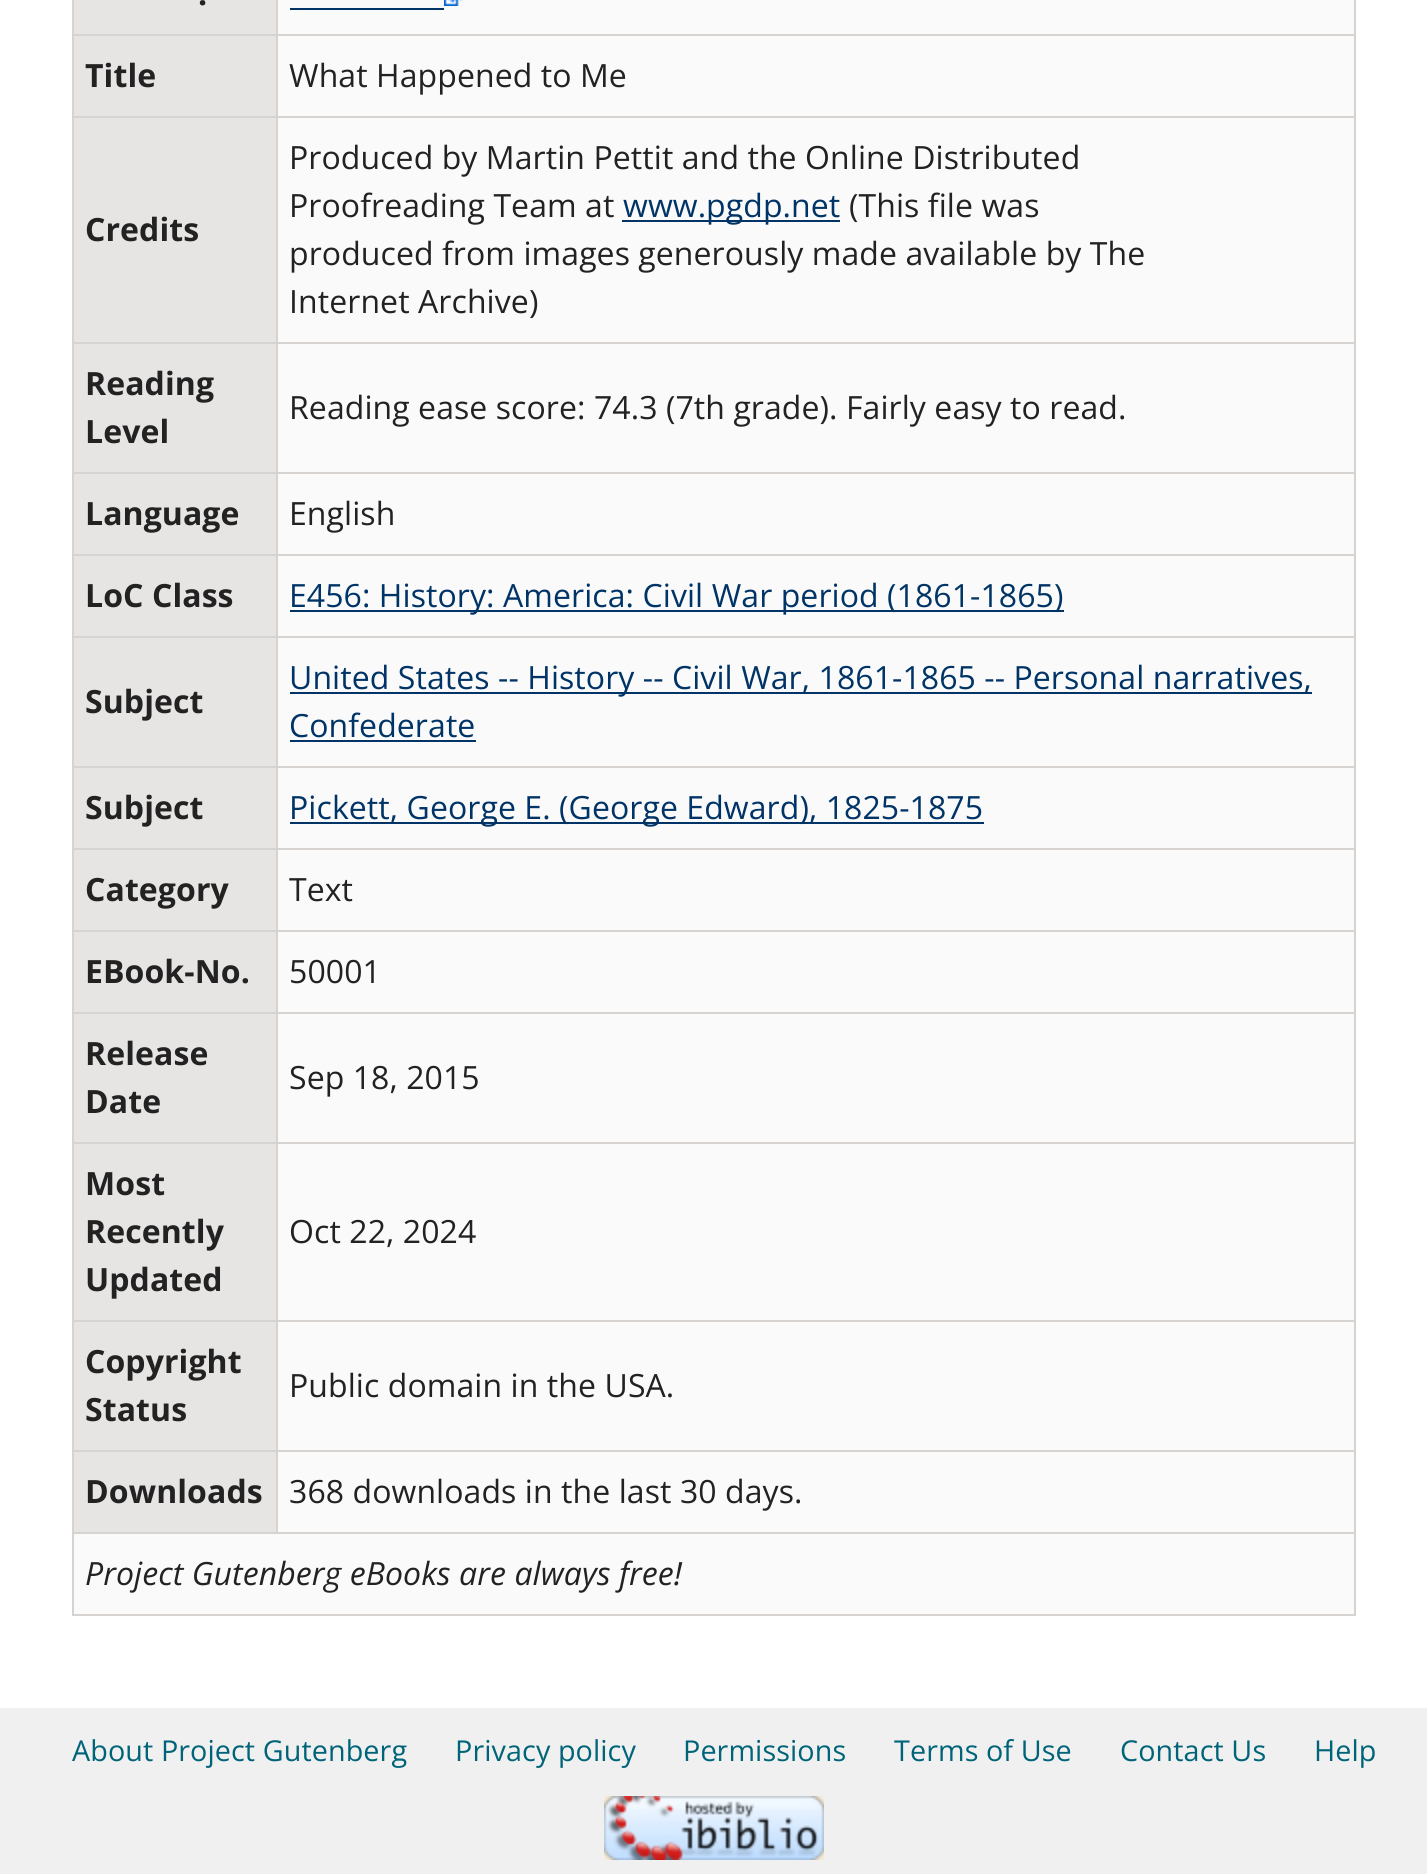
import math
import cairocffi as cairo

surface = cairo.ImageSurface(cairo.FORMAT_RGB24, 1427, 1874)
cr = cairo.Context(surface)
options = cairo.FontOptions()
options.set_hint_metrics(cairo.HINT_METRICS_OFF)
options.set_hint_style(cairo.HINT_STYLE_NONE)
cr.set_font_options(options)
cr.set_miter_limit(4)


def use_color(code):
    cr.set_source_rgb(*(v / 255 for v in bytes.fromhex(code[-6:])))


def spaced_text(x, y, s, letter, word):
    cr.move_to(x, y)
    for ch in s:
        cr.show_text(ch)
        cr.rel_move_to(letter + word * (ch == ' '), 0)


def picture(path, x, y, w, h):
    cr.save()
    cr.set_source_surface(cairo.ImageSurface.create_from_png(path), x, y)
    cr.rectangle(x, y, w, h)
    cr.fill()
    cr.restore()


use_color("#ffffff")
cr.paint()
use_color("#e7e5e4")
cr.rectangle(74, 0, 202, 34)
cr.fill()
cr.select_font_face("Open Sans", cairo.FONT_SLANT_NORMAL, cairo.FONT_WEIGHT_BOLD)
cr.set_font_size(32)
use_color("#222222")
spaced_text(198, 5, ".", 0.08, 0)
use_color("#fafafa")
cr.rectangle(278, 0, 1076, 34)
cr.fill()
use_color("#d6d3d1")
cr.rectangle(276, 34, 1080, 2)
cr.fill()
cr.rectangle(276, 116, 1080, 2)
cr.fill()
cr.rectangle(276, 342, 1080, 2)
cr.fill()
cr.rectangle(276, 472, 1080, 2)
cr.fill()
cr.rectangle(276, 554, 1080, 2)
cr.fill()
cr.rectangle(276, 636, 1080, 2)
cr.fill()
cr.rectangle(276, 766, 1080, 2)
cr.fill()
cr.rectangle(276, 848, 1080, 2)
cr.fill()
cr.rectangle(276, 930, 1080, 2)
cr.fill()
cr.rectangle(276, 1012, 1080, 2)
cr.fill()
cr.rectangle(276, 1142, 1080, 2)
cr.fill()
cr.rectangle(276, 1320, 1080, 2)
cr.fill()
cr.rectangle(276, 1450, 1080, 2)
cr.fill()
cr.rectangle(72, 1532, 1284, 2)
cr.fill()
cr.rectangle(276, 1450, 2, 84)
cr.fill()
cr.rectangle(72, 1450, 206, 2)
cr.fill()
cr.rectangle(276, 1320, 2, 132)
cr.fill()
cr.rectangle(72, 1320, 206, 2)
cr.fill()
cr.rectangle(276, 1142, 2, 180)
cr.fill()
cr.rectangle(72, 1142, 206, 2)
cr.fill()
cr.rectangle(276, 1012, 2, 132)
cr.fill()
cr.rectangle(72, 1012, 206, 2)
cr.fill()
cr.rectangle(276, 930, 2, 84)
cr.fill()
cr.rectangle(72, 930, 206, 2)
cr.fill()
cr.rectangle(276, 848, 2, 84)
cr.fill()
cr.rectangle(72, 848, 206, 2)
cr.fill()
cr.rectangle(276, 766, 2, 84)
cr.fill()
cr.rectangle(72, 766, 206, 2)
cr.fill()
cr.rectangle(276, 636, 2, 132)
cr.fill()
cr.rectangle(72, 636, 206, 2)
cr.fill()
cr.rectangle(276, 554, 2, 84)
cr.fill()
cr.rectangle(72, 554, 206, 2)
cr.fill()
cr.rectangle(276, 472, 2, 84)
cr.fill()
cr.rectangle(72, 472, 206, 2)
cr.fill()
cr.rectangle(276, 342, 2, 132)
cr.fill()
cr.rectangle(72, 342, 206, 2)
cr.fill()
cr.rectangle(276, 116, 2, 228)
cr.fill()
cr.rectangle(72, 116, 206, 2)
cr.fill()
cr.rectangle(276, 34, 2, 84)
cr.fill()
cr.rectangle(72, 34, 206, 2)
cr.fill()
cr.rectangle(276, 0, 2, 36)
cr.fill()
picture("img1.png", 444, 0, 19, 6)
use_color("#003366")
cr.rectangle(290, 8, 154, 2)
cr.fill()
use_color("#e7e5e4")
cr.rectangle(74, 36, 202, 80)
cr.fill()
use_color("#d6d3d1")
cr.rectangle(1354, 1532, 2, 84)
cr.fill()
cr.rectangle(72, 1614, 1284, 2)
cr.fill()
cr.rectangle(72, 1532, 2, 84)
cr.fill()
cr.rectangle(72, 1450, 2, 84)
cr.fill()
cr.rectangle(72, 1320, 2, 132)
cr.fill()
cr.rectangle(72, 1142, 2, 180)
cr.fill()
cr.rectangle(72, 1012, 2, 132)
cr.fill()
cr.rectangle(72, 930, 2, 84)
cr.fill()
cr.rectangle(72, 848, 2, 84)
cr.fill()
cr.rectangle(72, 766, 2, 84)
cr.fill()
cr.rectangle(72, 636, 2, 132)
cr.fill()
cr.rectangle(72, 554, 2, 84)
cr.fill()
cr.rectangle(72, 472, 2, 84)
cr.fill()
cr.rectangle(72, 342, 2, 132)
cr.fill()
cr.rectangle(72, 116, 2, 228)
cr.fill()
cr.rectangle(72, 0, 2, 118)
cr.fill()
use_color("#222222")
spaced_text(85, 87, "Title", 0.08, 0)
use_color("#fafafa")
cr.rectangle(278, 36, 1076, 80)
cr.fill()
use_color("#d6d3d1")
cr.rectangle(1354, 1450, 2, 84)
cr.fill()
cr.rectangle(1354, 1320, 2, 132)
cr.fill()
cr.rectangle(1354, 1142, 2, 180)
cr.fill()
cr.rectangle(1354, 1012, 2, 132)
cr.fill()
cr.rectangle(1354, 930, 2, 84)
cr.fill()
cr.rectangle(1354, 848, 2, 84)
cr.fill()
cr.rectangle(1354, 766, 2, 84)
cr.fill()
cr.rectangle(1354, 636, 2, 132)
cr.fill()
cr.rectangle(1354, 554, 2, 84)
cr.fill()
cr.rectangle(1354, 472, 2, 84)
cr.fill()
cr.rectangle(1354, 342, 2, 132)
cr.fill()
cr.rectangle(1354, 116, 2, 228)
cr.fill()
cr.rectangle(1354, 0, 2, 118)
cr.fill()
cr.select_font_face("Open Sans")
use_color("#222222")
spaced_text(289, 87, "What Happened to Me", 0.08, 0)
use_color("#e7e5e4")
cr.rectangle(74, 118, 202, 224)
cr.fill()
cr.select_font_face("Open Sans", cairo.FONT_SLANT_NORMAL, cairo.FONT_WEIGHT_BOLD)
use_color("#222222")
spaced_text(85, 241, "Credits", 0.08, 0)
use_color("#fafafa")
cr.rectangle(278, 118, 1076, 224)
cr.fill()
cr.select_font_face("Open Sans")
use_color("#222222")
spaced_text(289, 169, "Produced by Martin Pettit and the Online Distributed", 0.08, 0)
spaced_text(289, 217, "Proofreading Team at", 0.08, 0)
use_color("#003366")
cr.rectangle(622, 220, 218, 2)
cr.fill()
spaced_text(623, 217, "www.pgdp.net", 0.08, 0)
use_color("#222222")
spaced_text(849, 217, "(This file was", 0.08, 0)
spaced_text(289, 265, "produced from images generously made available by The", 0.08, 0)
spaced_text(289, 313, "Internet Archive)", 0.08, 0)
use_color("#e7e5e4")
cr.rectangle(74, 344, 202, 128)
cr.fill()
cr.select_font_face("Open Sans", cairo.FONT_SLANT_NORMAL, cairo.FONT_WEIGHT_BOLD)
use_color("#222222")
spaced_text(85, 395, "Reading", 0.08, 0)
spaced_text(85, 443, "Level", 0.08, 0)
use_color("#fafafa")
cr.rectangle(278, 344, 1076, 128)
cr.fill()
cr.select_font_face("Open Sans")
use_color("#222222")
spaced_text(289, 419, "Reading ease score: 74.3 (7th grade). Fairly easy to read.", 0.08, 0)
use_color("#e7e5e4")
cr.rectangle(74, 474, 202, 80)
cr.fill()
cr.select_font_face("Open Sans", cairo.FONT_SLANT_NORMAL, cairo.FONT_WEIGHT_BOLD)
use_color("#222222")
spaced_text(85, 525, "Language", 0.08, 0)
use_color("#fafafa")
cr.rectangle(278, 474, 1076, 80)
cr.fill()
cr.select_font_face("Open Sans")
use_color("#222222")
spaced_text(289, 525, "English", 0.08, 0)
use_color("#e7e5e4")
cr.rectangle(74, 556, 202, 80)
cr.fill()
cr.select_font_face("Open Sans", cairo.FONT_SLANT_NORMAL, cairo.FONT_WEIGHT_BOLD)
use_color("#222222")
spaced_text(85, 607, "LoC Class", 0.08, 0)
use_color("#fafafa")
cr.rectangle(278, 556, 1076, 80)
cr.fill()
use_color("#003366")
cr.rectangle(290, 610, 774, 2)
cr.fill()
cr.select_font_face("Open Sans")
spaced_text(289, 607, "E456: History: America: Civil War period (1861-1865)", 0.08, 0)
use_color("#e7e5e4")
cr.rectangle(74, 638, 202, 128)
cr.fill()
cr.select_font_face("Open Sans", cairo.FONT_SLANT_NORMAL, cairo.FONT_WEIGHT_BOLD)
use_color("#222222")
spaced_text(85, 713, "Subject", 0.08, 0)
use_color("#fafafa")
cr.rectangle(278, 638, 1076, 128)
cr.fill()
use_color("#003366")
cr.rectangle(290, 692, 1022, 2)
cr.fill()
cr.select_font_face("Open Sans")
spaced_text(289, 689, "United States -- History -- Civil War, 1861-1865 -- Personal narratives,", 0.08, 0)
spaced_text(289, 737, "Confederate", 0.08, 0)
cr.rectangle(290, 740, 186, 2)
cr.fill()
use_color("#e7e5e4")
cr.rectangle(74, 768, 202, 80)
cr.fill()
cr.select_font_face("Open Sans", cairo.FONT_SLANT_NORMAL, cairo.FONT_WEIGHT_BOLD)
use_color("#222222")
spaced_text(85, 819, "Subject", 0.08, 0)
use_color("#fafafa")
cr.rectangle(278, 768, 1076, 80)
cr.fill()
use_color("#003366")
cr.rectangle(290, 822, 694, 2)
cr.fill()
cr.select_font_face("Open Sans")
spaced_text(289, 819, "Pickett, George E. (George Edward), 1825-1875", 0.08, 0)
use_color("#e7e5e4")
cr.rectangle(74, 850, 202, 80)
cr.fill()
cr.select_font_face("Open Sans", cairo.FONT_SLANT_NORMAL, cairo.FONT_WEIGHT_BOLD)
use_color("#222222")
spaced_text(85, 901, "Category", 0.08, 0)
use_color("#fafafa")
cr.rectangle(278, 850, 1076, 80)
cr.fill()
cr.select_font_face("Open Sans")
use_color("#222222")
spaced_text(289, 901, "Text", 0.08, 0)
use_color("#e7e5e4")
cr.rectangle(74, 932, 202, 80)
cr.fill()
cr.select_font_face("Open Sans", cairo.FONT_SLANT_NORMAL, cairo.FONT_WEIGHT_BOLD)
use_color("#222222")
spaced_text(85, 983, "EBook-No.", 0.08, 0)
use_color("#fafafa")
cr.rectangle(278, 932, 1076, 80)
cr.fill()
cr.select_font_face("Open Sans")
use_color("#222222")
spaced_text(289, 983, "50001", 0.08, 0)
use_color("#e7e5e4")
cr.rectangle(74, 1014, 202, 128)
cr.fill()
cr.select_font_face("Open Sans", cairo.FONT_SLANT_NORMAL, cairo.FONT_WEIGHT_BOLD)
use_color("#222222")
spaced_text(85, 1065, "Release", 0.08, 0)
spaced_text(85, 1113, "Date", 0.08, 0)
use_color("#fafafa")
cr.rectangle(278, 1014, 1076, 128)
cr.fill()
cr.select_font_face("Open Sans")
use_color("#222222")
spaced_text(289, 1089, "Sep 18, 2015", 0.08, 0)
use_color("#e7e5e4")
cr.rectangle(74, 1144, 202, 176)
cr.fill()
cr.select_font_face("Open Sans", cairo.FONT_SLANT_NORMAL, cairo.FONT_WEIGHT_BOLD)
use_color("#222222")
spaced_text(85, 1195, "Most", 0.08, 0)
spaced_text(85, 1243, "Recently", 0.08, 0)
spaced_text(85, 1291, "Updated", 0.08, 0)
use_color("#fafafa")
cr.rectangle(278, 1144, 1076, 176)
cr.fill()
cr.select_font_face("Open Sans")
use_color("#222222")
spaced_text(289, 1243, "Oct 22, 2024", 0.08, 0)
use_color("#e7e5e4")
cr.rectangle(74, 1322, 202, 128)
cr.fill()
cr.select_font_face("Open Sans", cairo.FONT_SLANT_NORMAL, cairo.FONT_WEIGHT_BOLD)
use_color("#222222")
spaced_text(85, 1373, "Copyright", 0.08, 0)
spaced_text(85, 1421, "Status", 0.08, 0)
use_color("#fafafa")
cr.rectangle(278, 1322, 1076, 128)
cr.fill()
cr.select_font_face("Open Sans")
use_color("#222222")
spaced_text(289, 1397, "Public domain in the USA.", 0.08, 0)
use_color("#e7e5e4")
cr.rectangle(74, 1452, 202, 80)
cr.fill()
cr.select_font_face("Open Sans", cairo.FONT_SLANT_NORMAL, cairo.FONT_WEIGHT_BOLD)
use_color("#222222")
spaced_text(85, 1503, "Downloads", 0.08, 0)
use_color("#fafafa")
cr.rectangle(278, 1452, 1076, 80)
cr.fill()
cr.select_font_face("Open Sans")
use_color("#222222")
spaced_text(289, 1503, "368 downloads in the last 30 days.", 0.08, 0)
use_color("#fafafa")
cr.rectangle(74, 1534, 1280, 80)
cr.fill()
cr.select_font_face("Open Sans", cairo.FONT_SLANT_ITALIC)
use_color("#222222")
spaced_text(85, 1585, "Project Gutenberg eBooks are always free!", 0.08, 0)
use_color("#f0f0f0")
cr.rectangle(0, 1708, 1427, 166)
cr.fill()
cr.select_font_face("Open Sans")
cr.set_font_size(28.75)
use_color("#006479")
spaced_text(72, 1761, "About Project Gutenberg", 0.08, 0)
spaced_text(455, 1761, "Privacy policy", 0.08, 0)
spaced_text(683, 1761, "Permissions", 0.08, 0)
spaced_text(894, 1761, "Terms of Use", 0.08, 0)
spaced_text(1120, 1761, "Contact Us", 0.08, 0)
spaced_text(1314, 1761, "Help", 0.08, 0)
picture("img2.png", 604, 1796, 220, 64)
surface.write_to_png("result.png")
